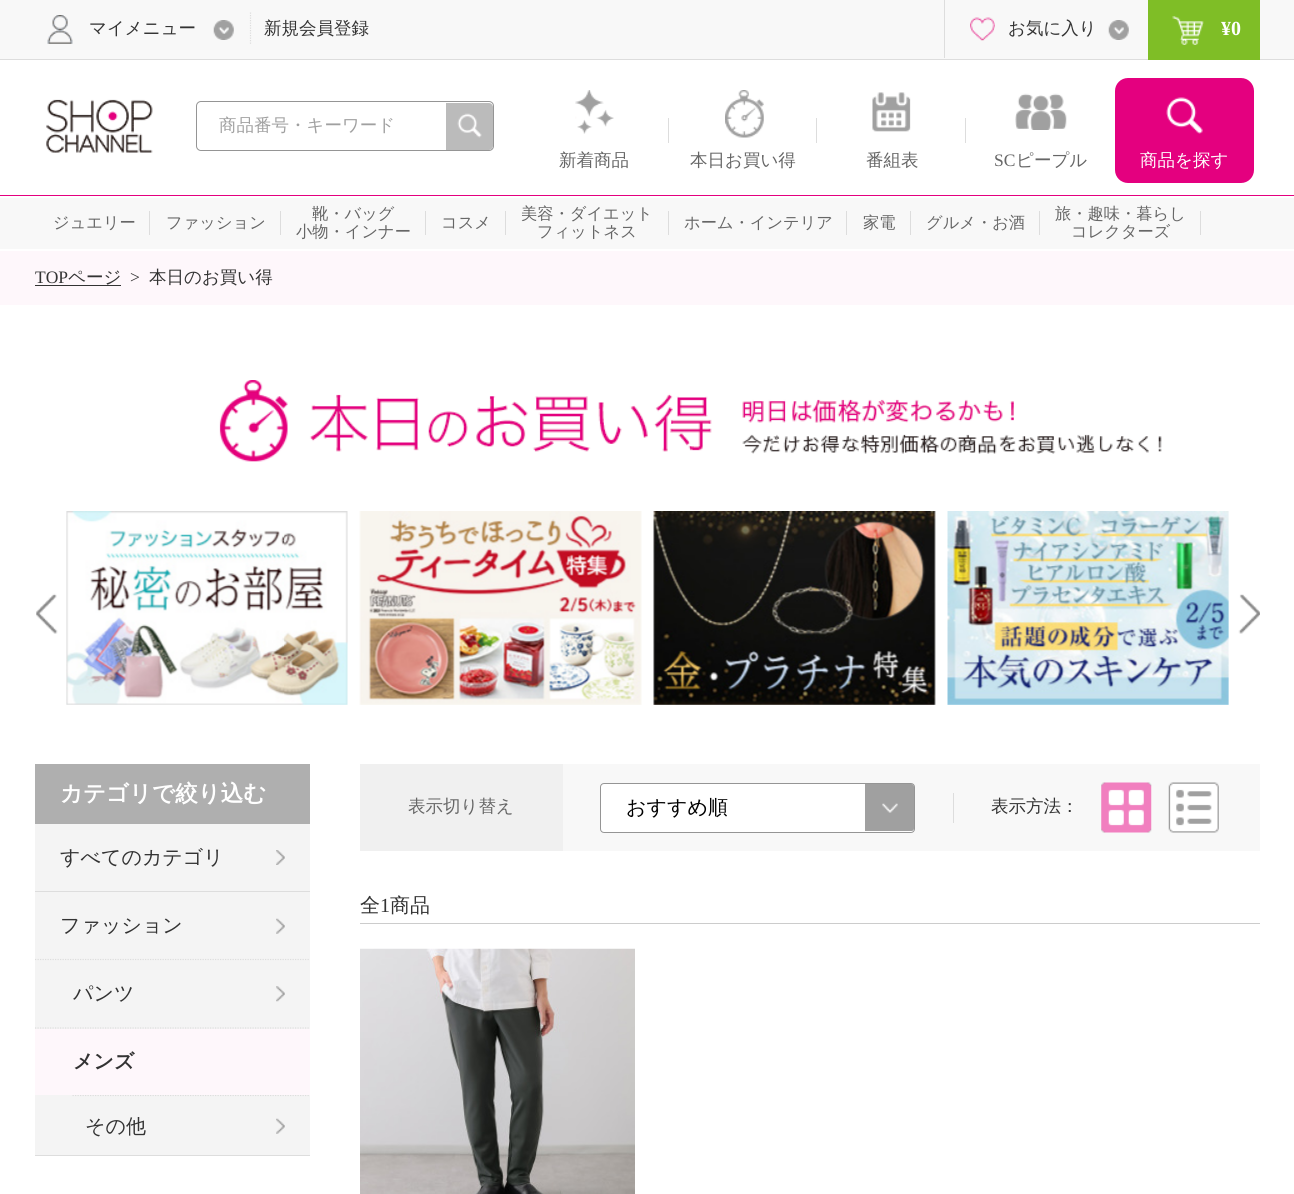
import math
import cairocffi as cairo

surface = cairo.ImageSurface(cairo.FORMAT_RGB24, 1294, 1194)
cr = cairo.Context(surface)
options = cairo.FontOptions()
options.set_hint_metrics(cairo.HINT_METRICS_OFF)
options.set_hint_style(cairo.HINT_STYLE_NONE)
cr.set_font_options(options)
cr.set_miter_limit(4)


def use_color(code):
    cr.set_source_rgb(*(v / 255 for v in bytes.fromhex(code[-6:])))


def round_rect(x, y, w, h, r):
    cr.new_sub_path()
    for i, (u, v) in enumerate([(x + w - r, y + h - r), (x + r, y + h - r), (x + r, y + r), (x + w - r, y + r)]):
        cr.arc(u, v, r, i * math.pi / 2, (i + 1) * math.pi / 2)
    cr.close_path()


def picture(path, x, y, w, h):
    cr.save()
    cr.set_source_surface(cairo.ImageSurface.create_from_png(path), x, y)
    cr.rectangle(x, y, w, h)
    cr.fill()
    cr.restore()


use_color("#ffffff")
cr.paint()
use_color("#e4007f")
cr.rectangle(0, 195, 1294, 1)
cr.fill()
use_color("#f8f8f8")
cr.rectangle(0, 0, 1294, 59)
cr.fill()
use_color("#dddddd")
cr.rectangle(0, 59, 1294, 1)
cr.fill()
picture("img1.png", 47, 15, 26, 29)
cr.select_font_face("WenQuanYi Zen Hei Medium")
cr.set_font_size(17.5)
use_color("#333333")
cr.move_to(89, 34)
cr.show_text("マイメニュー")
picture("img2.png", 213, 20, 21, 20)
cr.new_path()
cr.move_to(250.5, 12.5)
cr.line_to(250.5, 45)
use_color("#dddddd")
cr.set_line_width(1.2)
cr.set_dash([1.25, 1.25])
cr.stroke()
use_color("#333333")
cr.move_to(264, 34)
cr.show_text("新規会員登録")
use_color("#dddddd")
cr.rectangle(944, 0, 1, 58)
cr.fill()
picture("img3.png", 970, 17, 25, 24)
use_color("#333333")
cr.move_to(1008, 34)
cr.show_text("お気に入り")
picture("img2.png", 1108, 20, 21, 20)
use_color("#7fbe26")
cr.rectangle(1148, 0, 112, 60)
cr.fill()
picture("img4.png", 1172, 16, 32, 29)
cr.select_font_face("Liberation Serif", cairo.FONT_SLANT_NORMAL, cairo.FONT_WEIGHT_BOLD)
cr.set_font_size(20)
use_color("#ffffff")
cr.move_to(1221, 35)
cr.show_text("¥0")
picture("img5.png", 46, 99, 107, 54)
round_rect(196.5, 101.5, 297, 49, 4.5)
use_color("#959595")
cr.set_line_width(1)
cr.set_dash([])
cr.stroke()
use_color("#ffffff")
cr.new_path()
cr.move_to(202, 103)
cr.line_to(446, 103)
cr.line_to(446, 150)
cr.line_to(202, 150)
cr.curve_to(200, 150, 198, 148, 198, 146)
cr.line_to(198, 107)
cr.curve_to(198, 105, 200, 103, 202, 103)
cr.close_path()
cr.fill()
cr.select_font_face("WenQuanYi Zen Hei Medium")
cr.set_font_size(17.5)
use_color("#a0a0a0")
cr.move_to(219, 131)
cr.show_text("商品番号・キーワード")
use_color("#bbbbbb")
cr.new_path()
cr.move_to(446, 103)
cr.line_to(489, 103)
cr.curve_to(491, 103, 493, 105, 493, 107)
cr.line_to(493, 146)
cr.curve_to(493, 148, 491, 150, 489, 150)
cr.line_to(446, 150)
cr.close_path()
cr.fill()
picture("img6.png", 457, 113, 25, 25)
use_color("#dddddd")
cr.rectangle(668, 118, 1, 25)
cr.fill()
picture("img7.png", 575, 90, 39, 44)
use_color("#666666")
cr.move_to(559, 166)
cr.show_text("新着商品")
use_color("#dddddd")
cr.rectangle(816, 118, 1, 25)
cr.fill()
picture("img8.png", 725, 90, 39, 48)
use_color("#666666")
cr.move_to(690, 166)
cr.show_text("本日お買い得")
use_color("#dddddd")
cr.rectangle(965, 118, 1, 25)
cr.fill()
picture("img9.png", 872, 92, 39, 40)
use_color("#666666")
cr.move_to(866, 166)
cr.show_text("番組表")
picture("img10.png", 1015, 93, 52, 37)
cr.select_font_face("Liberation Serif")
cr.move_to(994, 166)
cr.show_text("SC")
cr.select_font_face("WenQuanYi Zen Hei Medium")
cr.move_to(1016, 166)
cr.show_text("ピープル")
use_color("#e4007f")
round_rect(1115, 78, 139, 105, 13)
cr.fill()
picture("img11.png", 1166, 97, 37, 37)
use_color("#ffffff")
cr.move_to(1140, 166)
cr.show_text("商品を探す")
use_color("#f8f8f8")
cr.rectangle(0, 198, 1294, 51)
cr.fill()
cr.set_font_size(16.25)
use_color("#666666")
cr.move_to(53, 228)
cr.show_text("ジュエリー")
use_color("#dddddd")
cr.rectangle(149, 211, 1, 24)
cr.fill()
use_color("#666666")
cr.move_to(166, 228)
cr.show_text("ファッション")
use_color("#dddddd")
cr.rectangle(280, 211, 1, 24)
cr.fill()
use_color("#666666")
cr.move_to(312, 219)
cr.show_text("靴・バッグ")
cr.move_to(296, 237)
cr.show_text("小物・インナー")
use_color("#dddddd")
cr.rectangle(425, 211, 1, 24)
cr.fill()
use_color("#666666")
cr.move_to(441, 228)
cr.show_text("コスメ")
use_color("#dddddd")
cr.rectangle(505, 211, 1, 24)
cr.fill()
use_color("#666666")
cr.move_to(521, 219)
cr.show_text("美容・ダイエット")
cr.move_to(537, 237)
cr.show_text("フィットネス")
use_color("#dddddd")
cr.rectangle(668, 211, 1, 24)
cr.fill()
use_color("#666666")
cr.move_to(684, 228)
cr.show_text("ホーム・インテリア")
use_color("#dddddd")
cr.rectangle(846, 211, 1, 24)
cr.fill()
use_color("#666666")
cr.move_to(863, 228)
cr.show_text("家電")
use_color("#dddddd")
cr.rectangle(910, 211, 1, 24)
cr.fill()
use_color("#666666")
cr.move_to(926, 228)
cr.show_text("グルメ・お酒")
use_color("#dddddd")
cr.rectangle(1039, 211, 1, 24)
cr.fill()
use_color("#666666")
cr.move_to(1055, 219)
cr.show_text("旅・趣味・暮らし")
cr.move_to(1071, 237)
cr.show_text("コレクターズ")
use_color("#dddddd")
cr.rectangle(1200, 211, 1, 24)
cr.fill()
use_color("#fef7fb")
cr.rectangle(0, 251, 1294, 54)
cr.fill()
cr.select_font_face("Liberation Serif")
cr.set_font_size(17.5)
use_color("#333333")
cr.move_to(35, 283)
cr.show_text("TOP")
cr.rectangle(35, 285, 86, 1)
cr.fill()
cr.select_font_face("WenQuanYi Zen Hei Medium")
cr.move_to(68, 283)
cr.show_text("ページ")
cr.select_font_face("Liberation Serif")
cr.move_to(130, 283)
cr.show_text(">")
cr.select_font_face("WenQuanYi Zen Hei Medium")
cr.move_to(149, 283)
cr.show_text("本日のお買い得")
picture("img12.png", 219, 380, 943, 82)
picture("img13.png", 66, 511, 282, 194)
picture("img14.png", 359, 511, 283, 194)
picture("img15.png", 653, 511, 283, 194)
picture("img16.png", 947, 511, 282, 194)
picture("img17.png", 36, 593, 22, 41)
picture("img18.png", 1238, 594, 22, 40)
use_color("#afafaf")
cr.rectangle(35, 764, 275, 60)
cr.fill()
cr.select_font_face("WenQuanYi Zen Hei", cairo.FONT_SLANT_NORMAL, cairo.FONT_WEIGHT_BOLD)
cr.set_font_size(22.5)
use_color("#ffffff")
cr.move_to(60, 801)
cr.show_text("カテゴリで絞り込む")
use_color("#f4f4f4")
cr.rectangle(35, 824, 275, 331)
cr.fill()
use_color("#dddddd")
cr.rectangle(35, 891, 275, 1)
cr.fill()
cr.select_font_face("WenQuanYi Zen Hei Medium")
cr.set_font_size(20)
use_color("#333333")
cr.move_to(60, 864)
cr.show_text("すべてのカテゴリ")
picture("img19.png", 276, 850, 9, 15)
use_color("#dddddd")
cr.rectangle(35, 1155, 275, 1)
cr.fill()
use_color("#333333")
cr.move_to(60, 932)
cr.show_text("ファッション")
picture("img20.png", 276, 918, 9, 16)
cr.new_path()
cr.move_to(35, 959.5)
cr.line_to(310, 959.5)
use_color("#dddddd")
cr.set_line_width(1.2)
cr.set_dash([1.25, 1.25])
cr.stroke()
use_color("#333333")
cr.move_to(73, 1000)
cr.show_text("パンツ")
picture("img21.png", 276, 986, 9, 16)
cr.new_path()
cr.move_to(35, 1028)
cr.line_to(310, 1028)
use_color("#dddddd")
cr.stroke()
cr.new_path()
cr.move_to(72.5, 1095.5)
cr.line_to(310, 1095.5)
cr.stroke()
use_color("#fef7fb")
cr.rectangle(35, 1029, 275, 66)
cr.fill()
cr.select_font_face("WenQuanYi Zen Hei", cairo.FONT_SLANT_NORMAL, cairo.FONT_WEIGHT_BOLD)
use_color("#333333")
cr.move_to(73, 1068)
cr.show_text("メンズ")
cr.select_font_face("WenQuanYi Zen Hei Medium")
cr.move_to(85, 1133)
cr.show_text("その他")
picture("img20.png", 276, 1118, 9, 16)
use_color("#f8f8f8")
cr.rectangle(563, 764, 697, 87)
cr.fill()
use_color("#f0f0f0")
cr.rectangle(360, 764, 203, 87)
cr.fill()
cr.set_font_size(17.5)
use_color("#666666")
cr.move_to(408, 812)
cr.show_text("表示切り替え")
use_color("#ffffff")
round_rect(600.5, 783.5, 314, 49, 3.5)
cr.fill_preserve()
use_color("#959595")
cr.set_line_width(1)
cr.set_dash([])
cr.stroke()
cr.set_font_size(20)
use_color("#000000")
cr.move_to(626, 814)
cr.show_text("おすすめ順")
use_color("#a0a0a0")
cr.new_path()
cr.move_to(865, 784)
cr.line_to(911.5, 784)
cr.curve_to(913, 784, 914, 785, 914, 786.5)
cr.line_to(914, 828.5)
cr.curve_to(914, 830, 913, 831, 911.5, 831)
cr.line_to(865, 831)
cr.close_path()
cr.fill()
picture("img22.png", 882, 803, 16, 10)
use_color("#dddddd")
cr.rectangle(953, 793, 1, 30)
cr.fill()
cr.set_font_size(17.5)
use_color("#333333")
cr.move_to(991, 812)
cr.show_text("表示方法：")
picture("img23.png", 1101, 782, 51, 51)
picture("img24.png", 1168, 782, 51, 51)
use_color("#cccccc")
cr.rectangle(360, 923, 900, 1)
cr.fill()
cr.set_font_size(20)
use_color("#333333")
cr.move_to(360, 912)
cr.show_text("全")
cr.select_font_face("Liberation Serif")
cr.move_to(380, 912)
cr.show_text("1")
cr.select_font_face("WenQuanYi Zen Hei Medium")
cr.move_to(390, 912)
cr.show_text("商品")
picture("img25.png", 360, 948, 275, 246)
surface.write_to_png("result.png")
